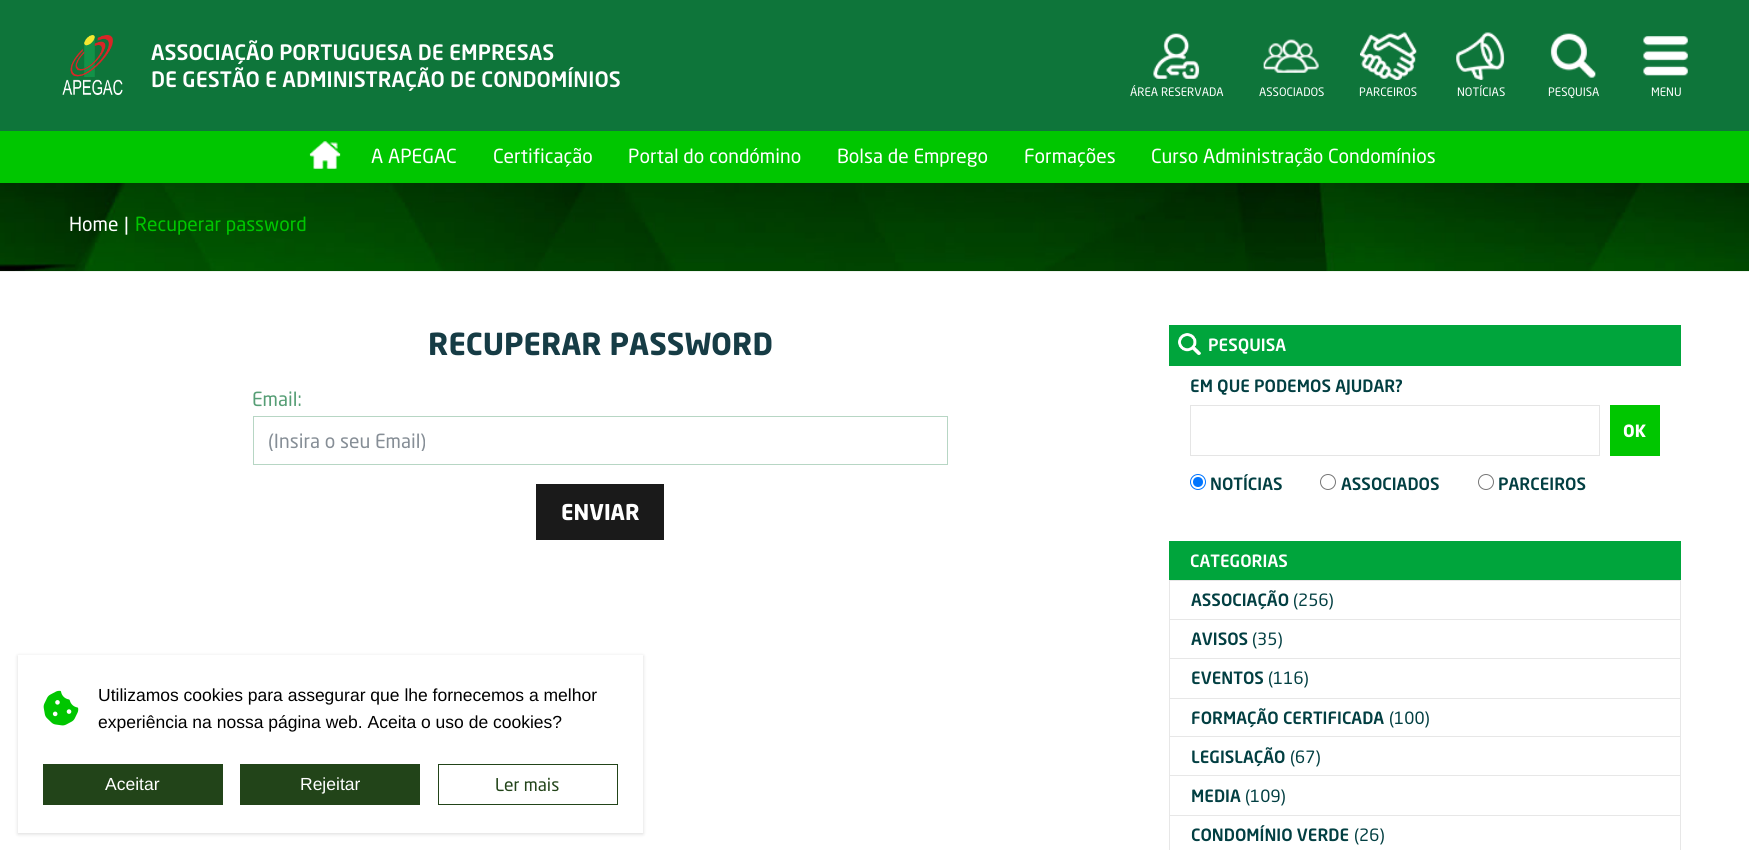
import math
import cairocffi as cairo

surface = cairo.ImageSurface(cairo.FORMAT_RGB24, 1749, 850)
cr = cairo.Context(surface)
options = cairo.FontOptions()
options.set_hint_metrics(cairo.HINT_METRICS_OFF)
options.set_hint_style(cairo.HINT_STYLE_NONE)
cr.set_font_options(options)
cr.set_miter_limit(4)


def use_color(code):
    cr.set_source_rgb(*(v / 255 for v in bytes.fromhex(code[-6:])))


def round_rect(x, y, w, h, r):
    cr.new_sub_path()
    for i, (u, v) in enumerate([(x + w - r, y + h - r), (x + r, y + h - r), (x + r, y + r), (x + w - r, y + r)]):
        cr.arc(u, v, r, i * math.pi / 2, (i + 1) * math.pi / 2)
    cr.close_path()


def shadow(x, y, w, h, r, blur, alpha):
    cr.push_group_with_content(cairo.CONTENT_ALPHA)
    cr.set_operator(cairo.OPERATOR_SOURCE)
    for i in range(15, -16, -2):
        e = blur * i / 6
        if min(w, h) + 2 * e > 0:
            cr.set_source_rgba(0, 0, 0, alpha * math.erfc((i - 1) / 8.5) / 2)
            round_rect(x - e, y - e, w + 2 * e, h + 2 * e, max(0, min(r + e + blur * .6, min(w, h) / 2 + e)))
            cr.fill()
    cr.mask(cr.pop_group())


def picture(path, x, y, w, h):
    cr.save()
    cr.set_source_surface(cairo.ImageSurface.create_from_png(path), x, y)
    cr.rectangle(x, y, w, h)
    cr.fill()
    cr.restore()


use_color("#ffffff")
cr.paint()
use_color("#0e753a")
cr.rectangle(0, 0, 1749, 131)
cr.fill()
picture("img1.png", 62, 35, 61, 60)
cr.select_font_face("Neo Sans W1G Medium")
cr.set_font_size(21)
use_color("#ffffff")
cr.move_to(151, 60)
cr.show_text("ASSOCIAÇÃO PORTUGUESA DE EMPRESAS")
cr.move_to(151, 87)
cr.show_text("DE GESTÃO E ADMINISTRAÇÃO DE CONDOMÍNIOS")
picture("img2.png", 1153, 33, 47, 46)
cr.select_font_face("Neo Sans W1G")
cr.set_font_size(11.5)
cr.move_to(1130, 96)
cr.show_text("ÁREA RESERVADA")
picture("img3.png", 1263, 39, 56, 34)
cr.move_to(1259, 96)
cr.show_text("ASSOCIADOS")
picture("img4.png", 1360, 32, 57, 48)
cr.move_to(1359, 96)
cr.show_text("PARCEIROS")
picture("img5.png", 1456, 32, 49, 48)
cr.move_to(1457, 96)
cr.show_text("NOTÍCIAS")
picture("img6.png", 1550, 33, 46, 45)
cr.move_to(1548, 96)
cr.show_text("PESQUISA")
picture("img7.png", 1643, 36, 45, 40)
cr.move_to(1651, 96)
cr.show_text("MENU")
use_color("#00c600")
cr.rectangle(0, 131, 1749, 52)
cr.fill()
picture("img8.png", 309, 141, 32, 28)
cr.set_font_size(19.25)
use_color("#ffffff")
cr.move_to(371, 163)
cr.show_text("A APEGAC")
cr.move_to(493, 163)
cr.show_text("Certificação")
cr.move_to(628, 163)
cr.show_text("Portal do condómino")
cr.move_to(837, 163)
cr.show_text("Bolsa de Emprego")
cr.move_to(1024, 163)
cr.show_text("Formações")
cr.move_to(1151, 163)
cr.show_text("Curso Administração Condomínios")
picture("img9.png", 0, 183, 1749, 89)
cr.move_to(69, 231)
cr.show_text("Home")
cr.move_to(124, 231)
cr.show_text("|")
use_color("#00c600")
cr.move_to(135, 231)
cr.show_text("Recuperar password")
cr.select_font_face("Neo Sans W1G", cairo.FONT_SLANT_NORMAL, cairo.FONT_WEIGHT_BOLD)
cr.set_font_size(30)
use_color("#163c45")
cr.move_to(428, 355)
cr.show_text("RECUPERAR PASSWORD")
cr.select_font_face("Neo Sans W1G")
cr.set_font_size(19.25)
use_color("#569e75")
cr.move_to(252, 406)
cr.show_text("Email:")
cr.rectangle(253.5, 416.5, 694, 48)
use_color("#b7d6c4")
cr.set_line_width(1)
cr.stroke()
cr.save()
cr.rectangle(269, 429, 662, 22)
cr.clip()
use_color("#868e96")
cr.move_to(268, 448)
cr.show_text("(Insira o seu Email)")
cr.restore()
use_color("#1a1a1a")
cr.rectangle(536, 484, 128, 56)
cr.fill()
cr.select_font_face("Neo Sans W1G", cairo.FONT_SLANT_NORMAL, cairo.FONT_WEIGHT_BOLD)
cr.set_font_size(21.5)
use_color("#ffffff")
cr.move_to(561, 520)
cr.show_text("ENVIAR")
use_color("#00a53c")
cr.rectangle(1169, 325, 512, 41)
cr.fill()
picture("img10.png", 1178, 333, 23, 22)
cr.select_font_face("Neo Sans W1G Medium")
cr.set_font_size(16.75)
use_color("#ffffff")
cr.move_to(1208, 351)
cr.show_text("PESQUISA")
use_color("#023f42")
cr.move_to(1190, 392)
cr.show_text("EM QUE PODEMOS AJUDAR?")
cr.rectangle(1190.5, 405.5, 409, 50)
use_color("#e5e5e5")
cr.stroke()
use_color("#00c600")
cr.rectangle(1610, 405, 50, 51)
cr.fill()
cr.select_font_face("Neo Sans W1G", cairo.FONT_SLANT_NORMAL, cairo.FONT_WEIGHT_BOLD)
use_color("#ffffff")
cr.move_to(1623, 437)
cr.show_text("OK")
cr.new_path()
cr.arc(1198, 482, 7.5, 0, 2 * math.pi)
use_color("#0075ff")
cr.stroke()
cr.arc(1198, 482, 5, 0, 2 * math.pi)
cr.fill()
cr.select_font_face("Neo Sans W1G Medium")
use_color("#023f42")
cr.move_to(1210, 490)
cr.show_text("NOTÍCIAS")
cr.new_path()
cr.arc(1328, 482, 7.5, 0, 2 * math.pi)
use_color("#767676")
cr.stroke()
use_color("#023f42")
cr.move_to(1341, 490)
cr.show_text("ASSOCIADOS")
cr.new_path()
cr.arc(1486, 482, 7.5, 0, 2 * math.pi)
use_color("#767676")
cr.stroke()
use_color("#023f42")
cr.move_to(1498, 490)
cr.show_text("PARCEIROS")
use_color("#00a53c")
cr.rectangle(1169, 541, 512, 39)
cr.fill()
use_color("#ffffff")
cr.move_to(1190, 567)
cr.show_text("CATEGORIAS")
cr.rectangle(1169.5, 580.5, 511, 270)
use_color("#e7e7e7")
cr.stroke()
cr.rectangle(1170, 619, 510, 1)
cr.fill()
use_color("#023f42")
cr.move_to(1191, 606)
cr.show_text("ASSOCIAÇÃO")
cr.select_font_face("Neo Sans W1G")
cr.move_to(1293, 606)
cr.show_text("(256)")
use_color("#e7e7e7")
cr.rectangle(1170, 658, 510, 1)
cr.fill()
cr.select_font_face("Neo Sans W1G Medium")
use_color("#023f42")
cr.move_to(1191, 645)
cr.show_text("AVISOS")
cr.select_font_face("Neo Sans W1G")
cr.move_to(1252, 645)
cr.show_text("(35)")
use_color("#e7e7e7")
cr.rectangle(1170, 698, 510, 1)
cr.fill()
cr.select_font_face("Neo Sans W1G Medium")
use_color("#023f42")
cr.move_to(1191, 684)
cr.show_text("EVENTOS")
cr.select_font_face("Neo Sans W1G")
cr.move_to(1268, 684)
cr.show_text("(116)")
use_color("#e7e7e7")
cr.rectangle(1170, 736, 510, 1)
cr.fill()
cr.select_font_face("Neo Sans W1G Medium")
use_color("#023f42")
cr.move_to(1191, 724)
cr.show_text("FORMAÇÃO CERTIFICADA")
cr.select_font_face("Neo Sans W1G")
cr.move_to(1389, 724)
cr.show_text("(100)")
use_color("#e7e7e7")
cr.rectangle(1170, 775, 510, 1)
cr.fill()
cr.select_font_face("Neo Sans W1G Medium")
use_color("#023f42")
cr.move_to(1191, 763)
cr.show_text("LEGISLAÇÃO")
cr.select_font_face("Neo Sans W1G")
cr.move_to(1290, 763)
cr.show_text("(67)")
use_color("#e7e7e7")
cr.rectangle(1170, 815, 510, 1)
cr.fill()
cr.select_font_face("Neo Sans W1G Medium")
use_color("#023f42")
cr.move_to(1191, 802)
cr.show_text("MEDIA")
cr.select_font_face("Neo Sans W1G")
cr.move_to(1245, 802)
cr.show_text("(109)")
cr.select_font_face("Neo Sans W1G Medium")
cr.move_to(1191, 841)
cr.show_text("CONDOMÍNIO VERDE")
cr.select_font_face("Neo Sans W1G")
cr.move_to(1354, 841)
cr.show_text("(26)")
cr.save()
cr.set_fill_rule(cairo.FILL_RULE_EVEN_ODD)
cr.new_path()
cr.move_to(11, 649)
cr.line_to(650, 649)
cr.line_to(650, 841)
cr.line_to(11, 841)
cr.close_path()
cr.move_to(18, 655)
cr.line_to(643, 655)
cr.line_to(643, 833)
cr.line_to(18, 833)
cr.close_path()
cr.clip()
use_color("#000000")
shadow(18, 656, 625, 178, 0, 2, 0.15)
cr.restore()
cr.set_source_rgba(1, 1, 1, 0.9)
cr.rectangle(18, 655, 625, 178)
cr.fill()
picture("img11.png", 43, 690, 36, 36)
cr.select_font_face("Liberation Sans")
cr.set_font_size(17.5)
use_color("#000000")
cr.move_to(98, 701)
cr.show_text("Utilizamos cookies para assegurar que lhe fornecemos a melhor")
cr.move_to(98, 728)
cr.show_text("experiência na nossa página web. Aceita o uso de cookies?")
use_color("#224419")
cr.rectangle(43, 764, 180, 41)
cr.fill()
use_color("#ffffff")
cr.move_to(105, 790)
cr.show_text("Aceitar")
use_color("#224419")
cr.rectangle(240, 764, 180, 41)
cr.fill()
use_color("#ffffff")
cr.move_to(300, 790)
cr.show_text("Rejeitar")
cr.rectangle(438.5, 764.5, 179, 40)
use_color("#224419")
cr.stroke()
cr.select_font_face("Neo Sans W1G")
cr.move_to(495, 791)
cr.show_text("Ler mais")
surface.write_to_png("result.png")
